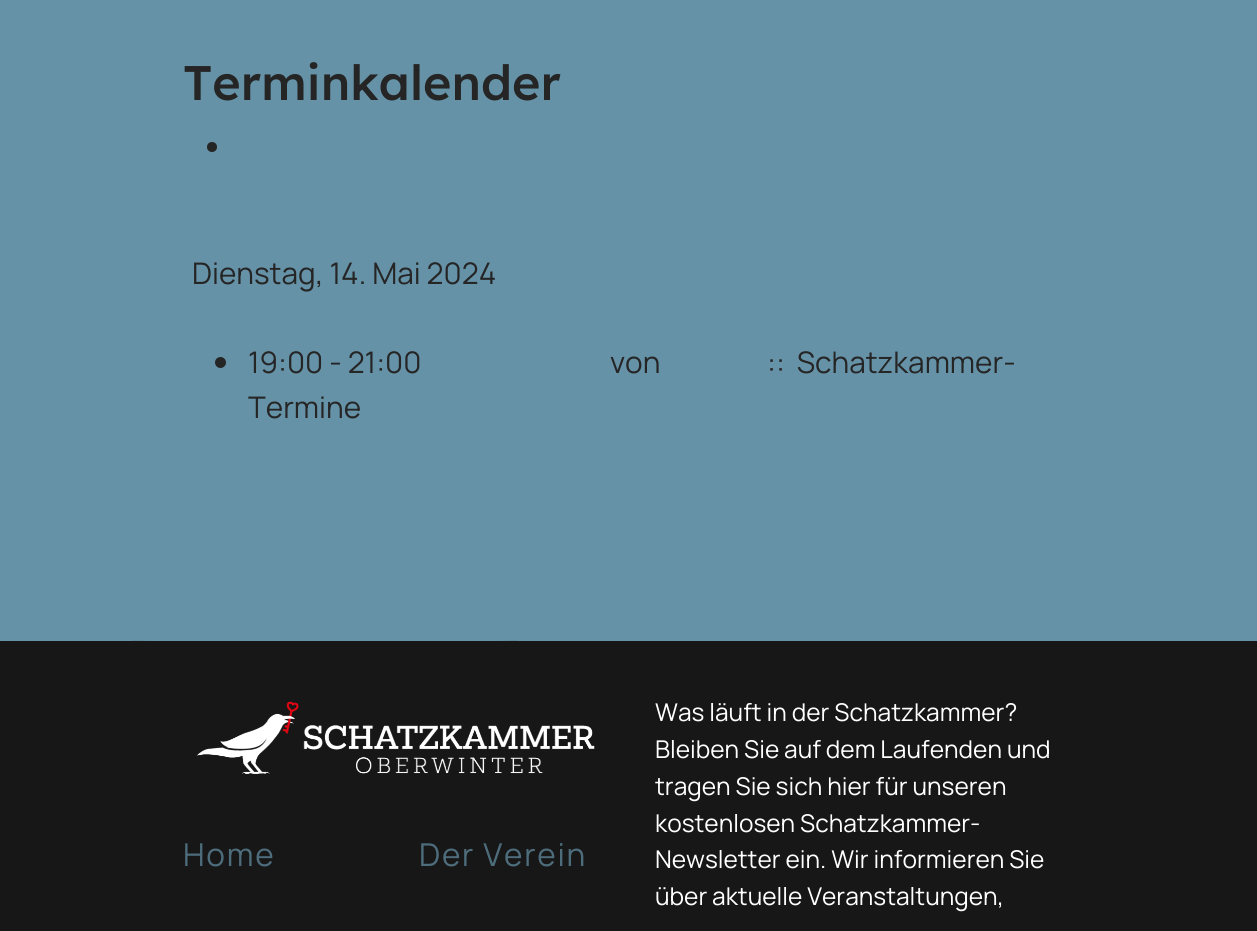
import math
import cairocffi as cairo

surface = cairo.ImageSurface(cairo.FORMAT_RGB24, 1257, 931)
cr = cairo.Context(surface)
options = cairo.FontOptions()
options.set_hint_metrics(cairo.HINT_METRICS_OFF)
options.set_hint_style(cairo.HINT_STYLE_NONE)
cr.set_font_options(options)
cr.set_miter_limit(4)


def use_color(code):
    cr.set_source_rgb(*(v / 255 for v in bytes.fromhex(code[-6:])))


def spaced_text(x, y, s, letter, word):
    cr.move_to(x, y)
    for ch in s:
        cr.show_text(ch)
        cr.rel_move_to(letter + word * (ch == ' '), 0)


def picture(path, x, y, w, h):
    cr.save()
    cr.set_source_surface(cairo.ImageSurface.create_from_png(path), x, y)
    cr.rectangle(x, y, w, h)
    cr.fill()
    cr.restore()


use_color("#6592a7")
cr.paint()
cr.select_font_face("Lexend Medium")
cr.set_font_size(48.5)
use_color("#252525")
cr.move_to(183, 100)
cr.show_text("Terminkalender")
cr.new_path()
cr.arc(212, 147, 5, 0, 2 * math.pi)
cr.fill()
cr.select_font_face("Manrope ExtraLight")
cr.set_font_size(29.75)
cr.move_to(192, 284)
cr.show_text("Dienstag, 14. Mai 2024")
cr.new_path()
cr.arc(220.5, 362.5, 5.5, 0, 2 * math.pi)
cr.fill()
cr.move_to(248, 373)
cr.show_text("19:00 - 21:00")
cr.move_to(610, 373)
cr.show_text("von")
cr.move_to(767, 373)
cr.show_text("::  Schatzkammer-")
cr.move_to(248, 418)
cr.show_text("Termine")
use_color("#171717")
cr.rectangle(0, 641, 1257, 290)
cr.fill()
picture("img1.png", 132, 640, 386, 1)
picture("img2.png", 196, 701, 399, 73)
cr.set_font_size(31.5)
use_color("#4e6d7c")
spaced_text(183, 866, "Home", 1.75, 0)
spaced_text(419, 866, "Der Verein", 1.75, 0)
cr.set_font_size(24.5)
use_color("#ffffff")
cr.move_to(655, 721)
cr.show_text("Was läuft in der Schatzkammer?")
cr.move_to(655, 758)
cr.show_text("Bleiben Sie auf dem Laufenden und")
cr.move_to(655, 795)
cr.show_text("tragen Sie sich hier für unseren")
cr.move_to(655, 832)
cr.show_text("kostenlosen Schatzkammer-")
cr.move_to(655, 868)
cr.show_text("Newsletter ein. Wir informieren Sie")
cr.move_to(655, 905)
cr.show_text("über aktuelle Veranstaltungen,")
surface.write_to_png("result.png")
